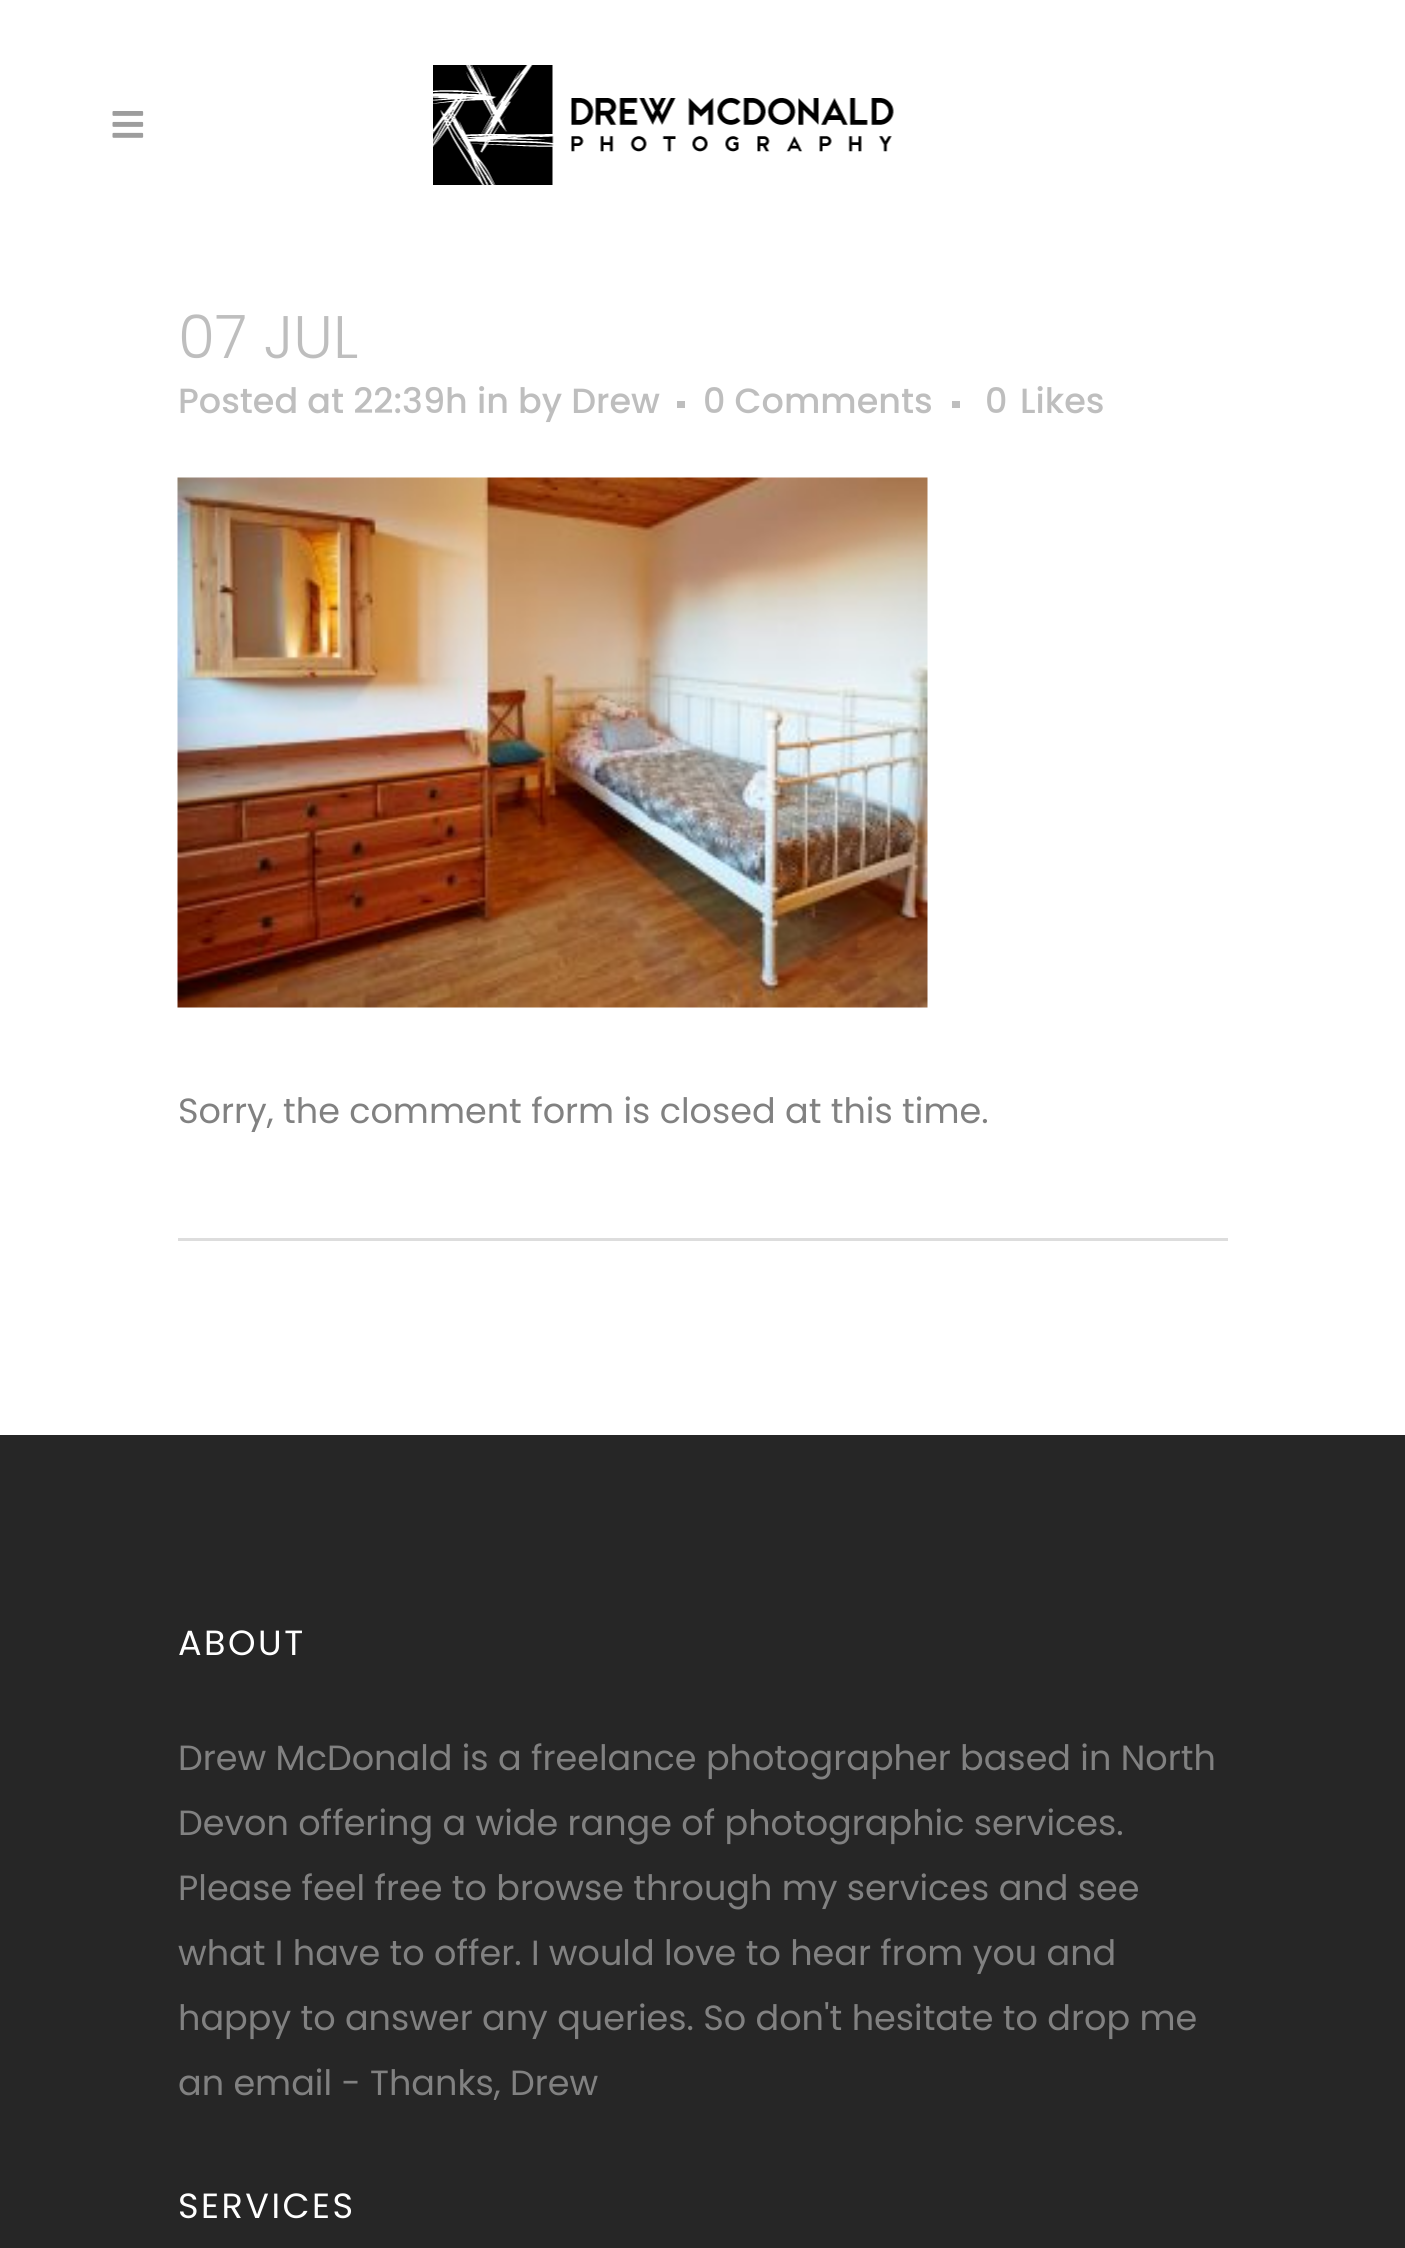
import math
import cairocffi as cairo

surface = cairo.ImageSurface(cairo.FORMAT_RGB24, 1405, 2248)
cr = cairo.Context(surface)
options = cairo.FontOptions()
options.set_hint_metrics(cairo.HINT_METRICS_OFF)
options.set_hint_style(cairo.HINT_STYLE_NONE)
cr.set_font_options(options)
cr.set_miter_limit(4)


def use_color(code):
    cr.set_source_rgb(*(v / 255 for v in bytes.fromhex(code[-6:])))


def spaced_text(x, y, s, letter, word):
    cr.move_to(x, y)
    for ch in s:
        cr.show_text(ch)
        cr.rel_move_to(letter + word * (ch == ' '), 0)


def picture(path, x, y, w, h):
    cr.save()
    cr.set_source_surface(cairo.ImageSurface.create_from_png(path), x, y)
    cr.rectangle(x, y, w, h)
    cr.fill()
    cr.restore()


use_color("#ffffff")
cr.paint()
picture("img1.png", 112, 111, 32, 27)
picture("img2.png", 433, 65, 461, 120)
cr.select_font_face("Poppins Light")
cr.set_font_size(60)
use_color("#bebebe")
cr.move_to(178, 358)
cr.show_text("07 JUL")
cr.select_font_face("Poppins Medium")
cr.set_font_size(35)
cr.move_to(178, 413)
cr.show_text("Posted at 22:39h in by Drew")
cr.rectangle(677, 401, 8, 7)
cr.fill()
cr.move_to(703, 413)
cr.show_text("0 Comments")
cr.rectangle(952, 401, 8, 7)
cr.fill()
cr.move_to(985, 413)
cr.show_text("0")
cr.move_to(1020, 413)
cr.show_text("Likes")
picture("img3.png", 177, 477, 751, 531)
cr.select_font_face("Poppins")
use_color("#818181")
cr.move_to(178, 1123)
cr.show_text("Sorry, the comment form is closed at this time.")
use_color("#dddddd")
cr.rectangle(178, 1238, 1050, 3)
cr.fill()
use_color("#262626")
cr.rectangle(0, 1435, 1405, 813)
cr.fill()
use_color("#ffffff")
spaced_text(178, 1655, "ABOUT", 2.5, 0)
use_color("#818181")
cr.move_to(178, 1770)
cr.show_text("Drew McDonald is a freelance photographer based in North")
cr.move_to(178, 1835)
cr.show_text("Devon offering a wide range of photographic services.")
cr.move_to(178, 1900)
cr.show_text("Please feel free to browse through my services and see")
cr.move_to(178, 1965)
cr.show_text("what I have to offer. I would love to hear from you and")
cr.move_to(178, 2030)
cr.show_text("happy to answer any queries. So don't hesitate to drop me")
cr.move_to(178, 2095)
cr.show_text("an email - Thanks, Drew")
use_color("#ffffff")
spaced_text(178, 2218, "SERVICES", 2.5, 0)
surface.write_to_png("result.png")
